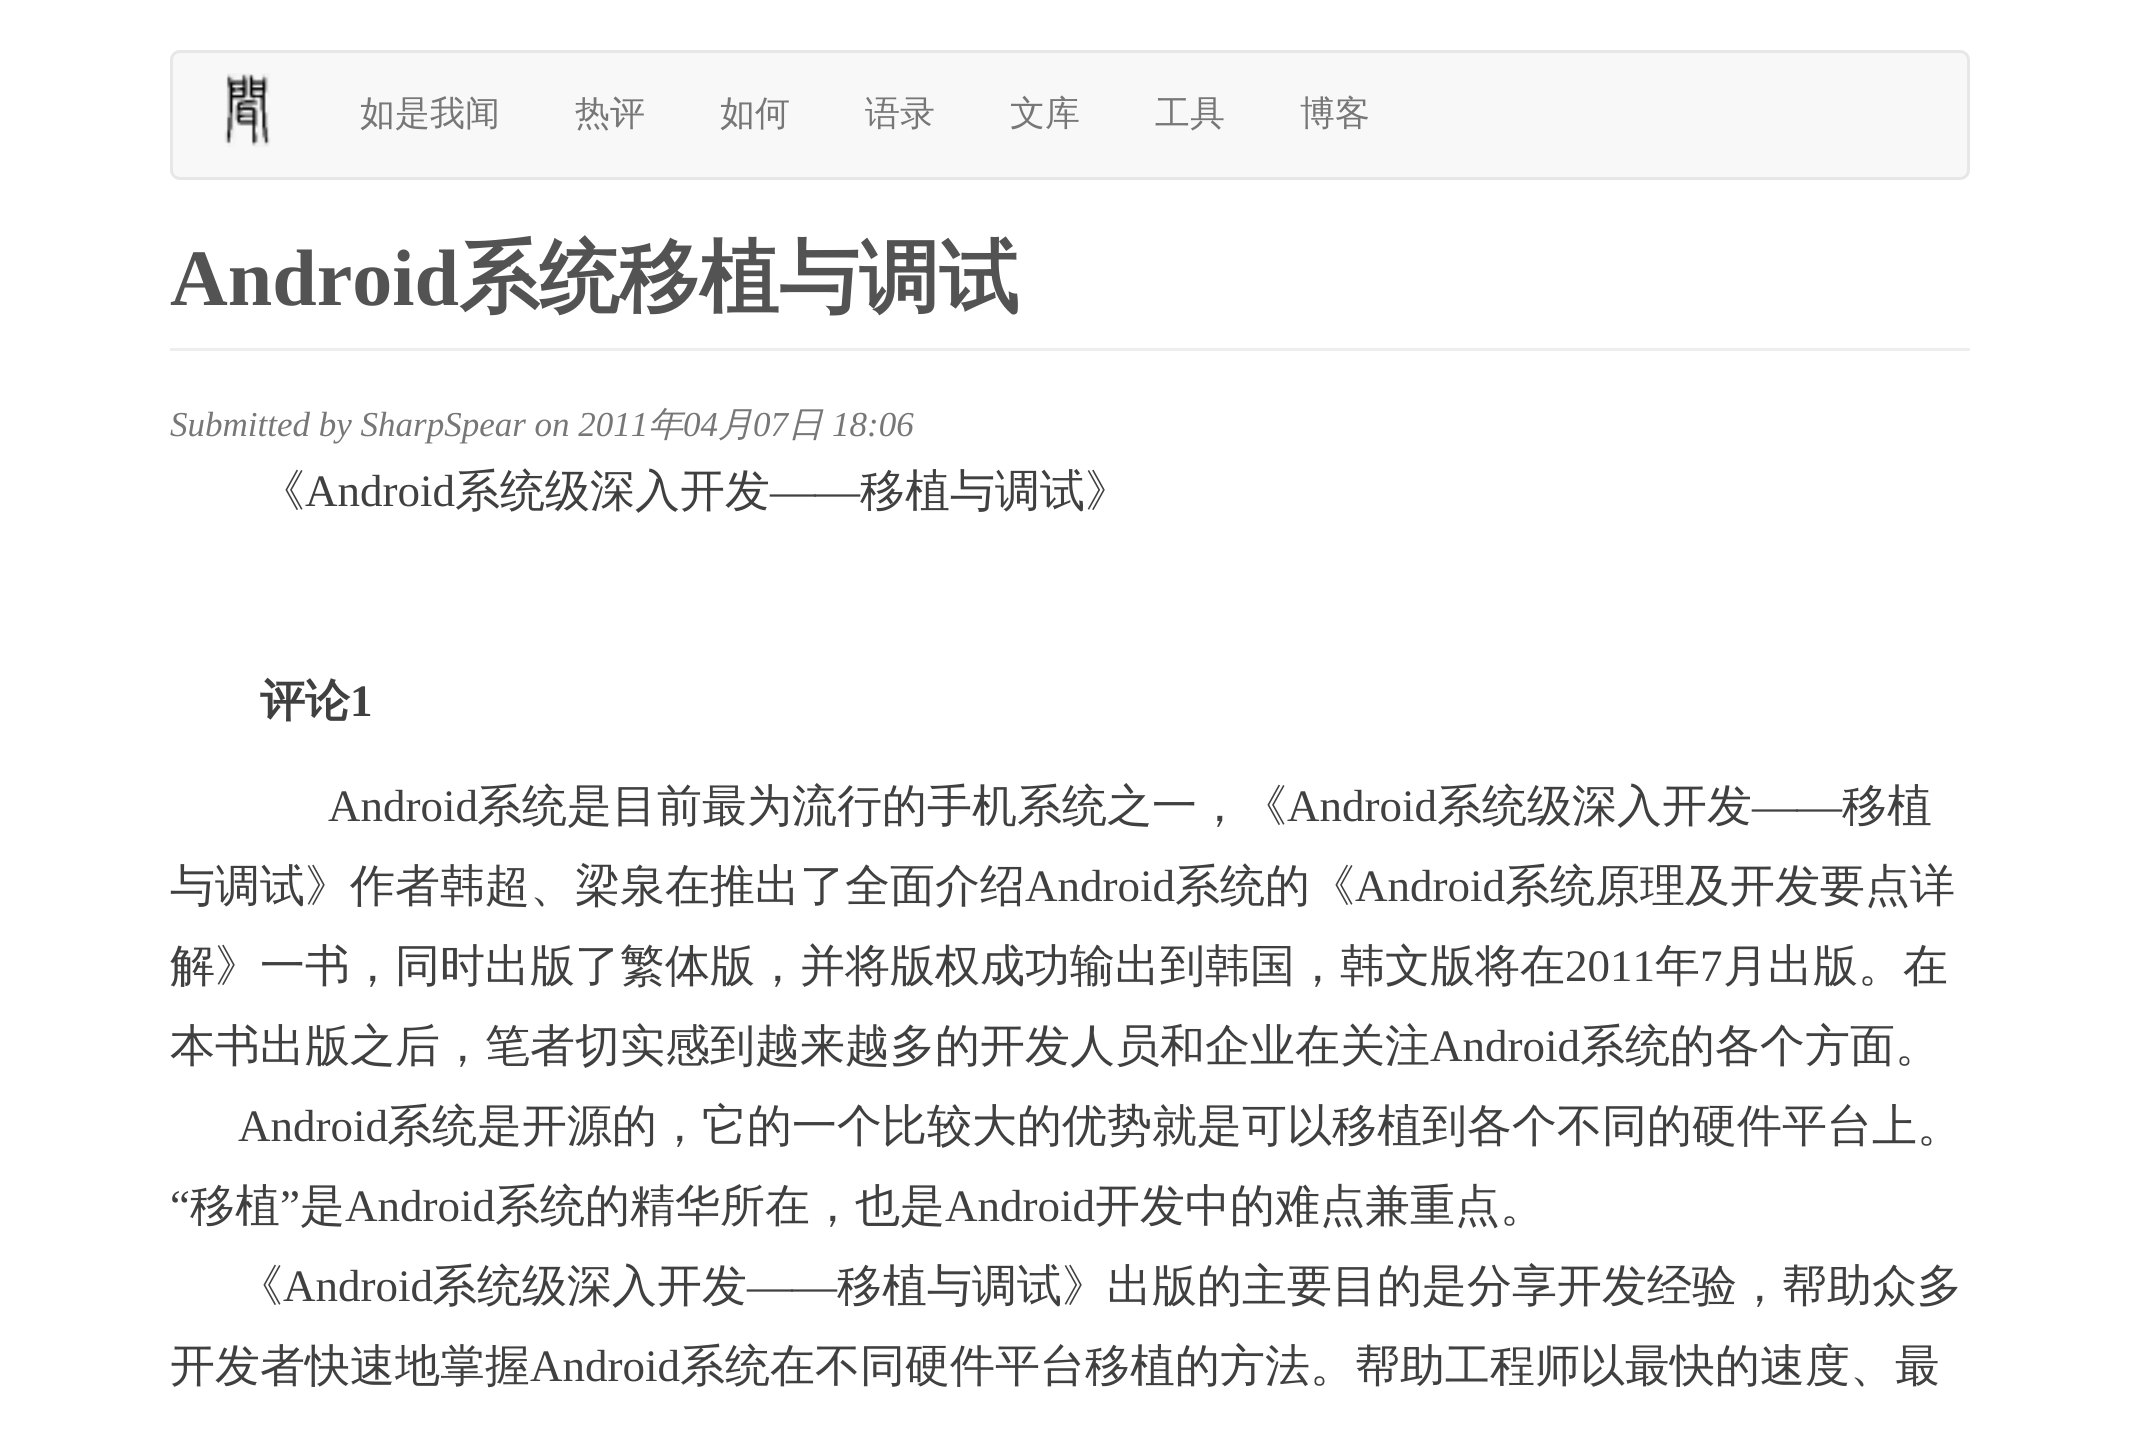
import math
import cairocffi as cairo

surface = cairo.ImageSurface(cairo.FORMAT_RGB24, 2140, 1429)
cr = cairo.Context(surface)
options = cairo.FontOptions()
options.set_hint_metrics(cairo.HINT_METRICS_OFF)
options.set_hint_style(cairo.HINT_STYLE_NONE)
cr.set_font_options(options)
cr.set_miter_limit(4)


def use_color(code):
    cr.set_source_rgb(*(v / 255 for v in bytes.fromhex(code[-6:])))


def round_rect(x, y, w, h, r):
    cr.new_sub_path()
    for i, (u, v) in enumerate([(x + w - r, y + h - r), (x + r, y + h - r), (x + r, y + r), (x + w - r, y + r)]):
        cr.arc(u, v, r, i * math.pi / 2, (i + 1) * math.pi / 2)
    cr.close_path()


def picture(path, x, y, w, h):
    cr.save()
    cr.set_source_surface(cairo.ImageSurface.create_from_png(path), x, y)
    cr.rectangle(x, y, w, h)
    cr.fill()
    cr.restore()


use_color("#ffffff")
cr.paint()
use_color("#f8f8f8")
round_rect(171.5, 51.5, 1797, 127, 8.5)
cr.fill_preserve()
use_color("#e7e7e7")
cr.set_line_width(3)
cr.stroke()
picture("img1.png", 224, 73, 47, 74)
cr.select_font_face("WenQuanYi Zen Hei Medium")
cr.set_font_size(35)
use_color("#777777")
cr.move_to(360, 125)
cr.show_text("如是我闻")
cr.move_to(575, 125)
cr.show_text("热评")
cr.move_to(720, 125)
cr.show_text("如何")
cr.move_to(865, 125)
cr.show_text("语录")
cr.move_to(1010, 125)
cr.show_text("文库")
cr.move_to(1155, 125)
cr.show_text("工具")
cr.move_to(1300, 125)
cr.show_text("博客")
use_color("#eeeeee")
cr.rectangle(170, 348, 1800, 3)
cr.fill()
cr.select_font_face("Liberation Serif", cairo.FONT_SLANT_NORMAL, cairo.FONT_WEIGHT_BOLD)
cr.set_font_size(80)
use_color("#535353")
cr.move_to(170, 305)
cr.show_text("Android")
cr.select_font_face("WenQuanYi Zen Hei", cairo.FONT_SLANT_NORMAL, cairo.FONT_WEIGHT_BOLD)
cr.move_to(459, 305)
cr.show_text("系统移植与调试")
cr.select_font_face("Liberation Serif", cairo.FONT_SLANT_ITALIC)
cr.set_font_size(35)
use_color("#777777")
cr.move_to(170, 436)
cr.show_text("Submitted by SharpSpear on 2011")
cr.select_font_face("WenQuanYi Zen Hei Medium", cairo.FONT_SLANT_ITALIC)
cr.move_to(648, 436)
cr.show_text("年")
cr.select_font_face("Liberation Serif", cairo.FONT_SLANT_ITALIC)
cr.move_to(683, 436)
cr.show_text("04")
cr.select_font_face("WenQuanYi Zen Hei Medium", cairo.FONT_SLANT_ITALIC)
cr.move_to(718, 436)
cr.show_text("月")
cr.select_font_face("Liberation Serif", cairo.FONT_SLANT_ITALIC)
cr.move_to(753, 436)
cr.show_text("07")
cr.select_font_face("WenQuanYi Zen Hei Medium", cairo.FONT_SLANT_ITALIC)
cr.move_to(788, 436)
cr.show_text("日")
cr.select_font_face("Liberation Serif", cairo.FONT_SLANT_ITALIC)
cr.move_to(832, 436)
cr.show_text("18:06")
cr.select_font_face("WenQuanYi Zen Hei Medium")
cr.set_font_size(45)
use_color("#404040")
cr.move_to(260, 506)
cr.show_text("《")
cr.select_font_face("Liberation Serif")
cr.move_to(305, 506)
cr.show_text("Android")
cr.select_font_face("WenQuanYi Zen Hei Medium")
cr.move_to(455, 506)
cr.show_text("系统级深入开发")
cr.select_font_face("Liberation Serif")
cr.move_to(770, 506)
cr.show_text("——")
cr.select_font_face("WenQuanYi Zen Hei Medium")
cr.move_to(860, 506)
cr.show_text("移植与调试》")
cr.select_font_face("WenQuanYi Zen Hei", cairo.FONT_SLANT_NORMAL, cairo.FONT_WEIGHT_BOLD)
cr.move_to(260, 716)
cr.show_text("评论")
cr.select_font_face("Liberation Serif", cairo.FONT_SLANT_NORMAL, cairo.FONT_WEIGHT_BOLD)
cr.move_to(350, 716)
cr.show_text("1")
cr.select_font_face("Liberation Serif")
cr.move_to(328, 821)
cr.show_text("Android")
cr.select_font_face("WenQuanYi Zen Hei Medium")
cr.move_to(477, 821)
cr.show_text("系统是目前最为流行的手机系统之一，《")
cr.select_font_face("Liberation Serif")
cr.move_to(1287, 821)
cr.show_text("Android")
cr.select_font_face("WenQuanYi Zen Hei Medium")
cr.move_to(1437, 821)
cr.show_text("系统级深入开发")
cr.select_font_face("Liberation Serif")
cr.move_to(1752, 821)
cr.show_text("——")
cr.select_font_face("WenQuanYi Zen Hei Medium")
cr.move_to(1842, 821)
cr.show_text("移植")
cr.move_to(170, 901)
cr.show_text("与调试》作者韩超、梁泉在推出了全面介绍")
cr.select_font_face("Liberation Serif")
cr.move_to(1025, 901)
cr.show_text("Android")
cr.select_font_face("WenQuanYi Zen Hei Medium")
cr.move_to(1175, 901)
cr.show_text("系统的《")
cr.select_font_face("Liberation Serif")
cr.move_to(1355, 901)
cr.show_text("Android")
cr.select_font_face("WenQuanYi Zen Hei Medium")
cr.move_to(1505, 901)
cr.show_text("系统原理及开发要点详")
cr.move_to(170, 981)
cr.show_text("解》一书，同时出版了繁体版，并将版权成功输出到韩国，韩文版将在")
cr.select_font_face("Liberation Serif")
cr.move_to(1565, 981)
cr.show_text("2011")
cr.select_font_face("WenQuanYi Zen Hei Medium")
cr.move_to(1655, 981)
cr.show_text("年")
cr.select_font_face("Liberation Serif")
cr.move_to(1700, 981)
cr.show_text("7")
cr.select_font_face("WenQuanYi Zen Hei Medium")
cr.move_to(1723, 981)
cr.show_text("月出版。在")
cr.move_to(170, 1061)
cr.show_text("本书出版之后，笔者切实感到越来越多的开发人员和企业在关注")
cr.select_font_face("Liberation Serif")
cr.move_to(1430, 1061)
cr.show_text("Android")
cr.select_font_face("WenQuanYi Zen Hei Medium")
cr.move_to(1580, 1061)
cr.show_text("系统的各个方面。")
cr.select_font_face("Liberation Serif")
cr.move_to(238, 1141)
cr.show_text("Android")
cr.select_font_face("WenQuanYi Zen Hei Medium")
cr.move_to(387, 1141)
cr.show_text("系统是开源的，它的一个比较大的优势就是可以移植到各个不同的硬件平台上。")
cr.select_font_face("Liberation Serif")
cr.move_to(170, 1221)
cr.show_text("“")
cr.select_font_face("WenQuanYi Zen Hei Medium")
cr.move_to(190, 1221)
cr.show_text("移植")
cr.select_font_face("Liberation Serif")
cr.move_to(280, 1221)
cr.show_text("”")
cr.select_font_face("WenQuanYi Zen Hei Medium")
cr.move_to(300, 1221)
cr.show_text("是")
cr.select_font_face("Liberation Serif")
cr.move_to(345, 1221)
cr.show_text("Android")
cr.select_font_face("WenQuanYi Zen Hei Medium")
cr.move_to(495, 1221)
cr.show_text("系统的精华所在，也是")
cr.select_font_face("Liberation Serif")
cr.move_to(945, 1221)
cr.show_text("Android")
cr.select_font_face("WenQuanYi Zen Hei Medium")
cr.move_to(1095, 1221)
cr.show_text("开发中的难点兼重点。")
cr.move_to(238, 1301)
cr.show_text("《")
cr.select_font_face("Liberation Serif")
cr.move_to(283, 1301)
cr.show_text("Android")
cr.select_font_face("WenQuanYi Zen Hei Medium")
cr.move_to(432, 1301)
cr.show_text("系统级深入开发")
cr.select_font_face("Liberation Serif")
cr.move_to(747, 1301)
cr.show_text("——")
cr.select_font_face("WenQuanYi Zen Hei Medium")
cr.move_to(837, 1301)
cr.show_text("移植与调试》出版的主要目的是分享开发经验，帮助众多")
cr.move_to(170, 1381)
cr.show_text("开发者快速地掌握")
cr.select_font_face("Liberation Serif")
cr.move_to(530, 1381)
cr.show_text("Android")
cr.select_font_face("WenQuanYi Zen Hei Medium")
cr.move_to(680, 1381)
cr.show_text("系统在不同硬件平台移植的方法。帮助工程师以最快的速度、最")
surface.write_to_png("result.png")
